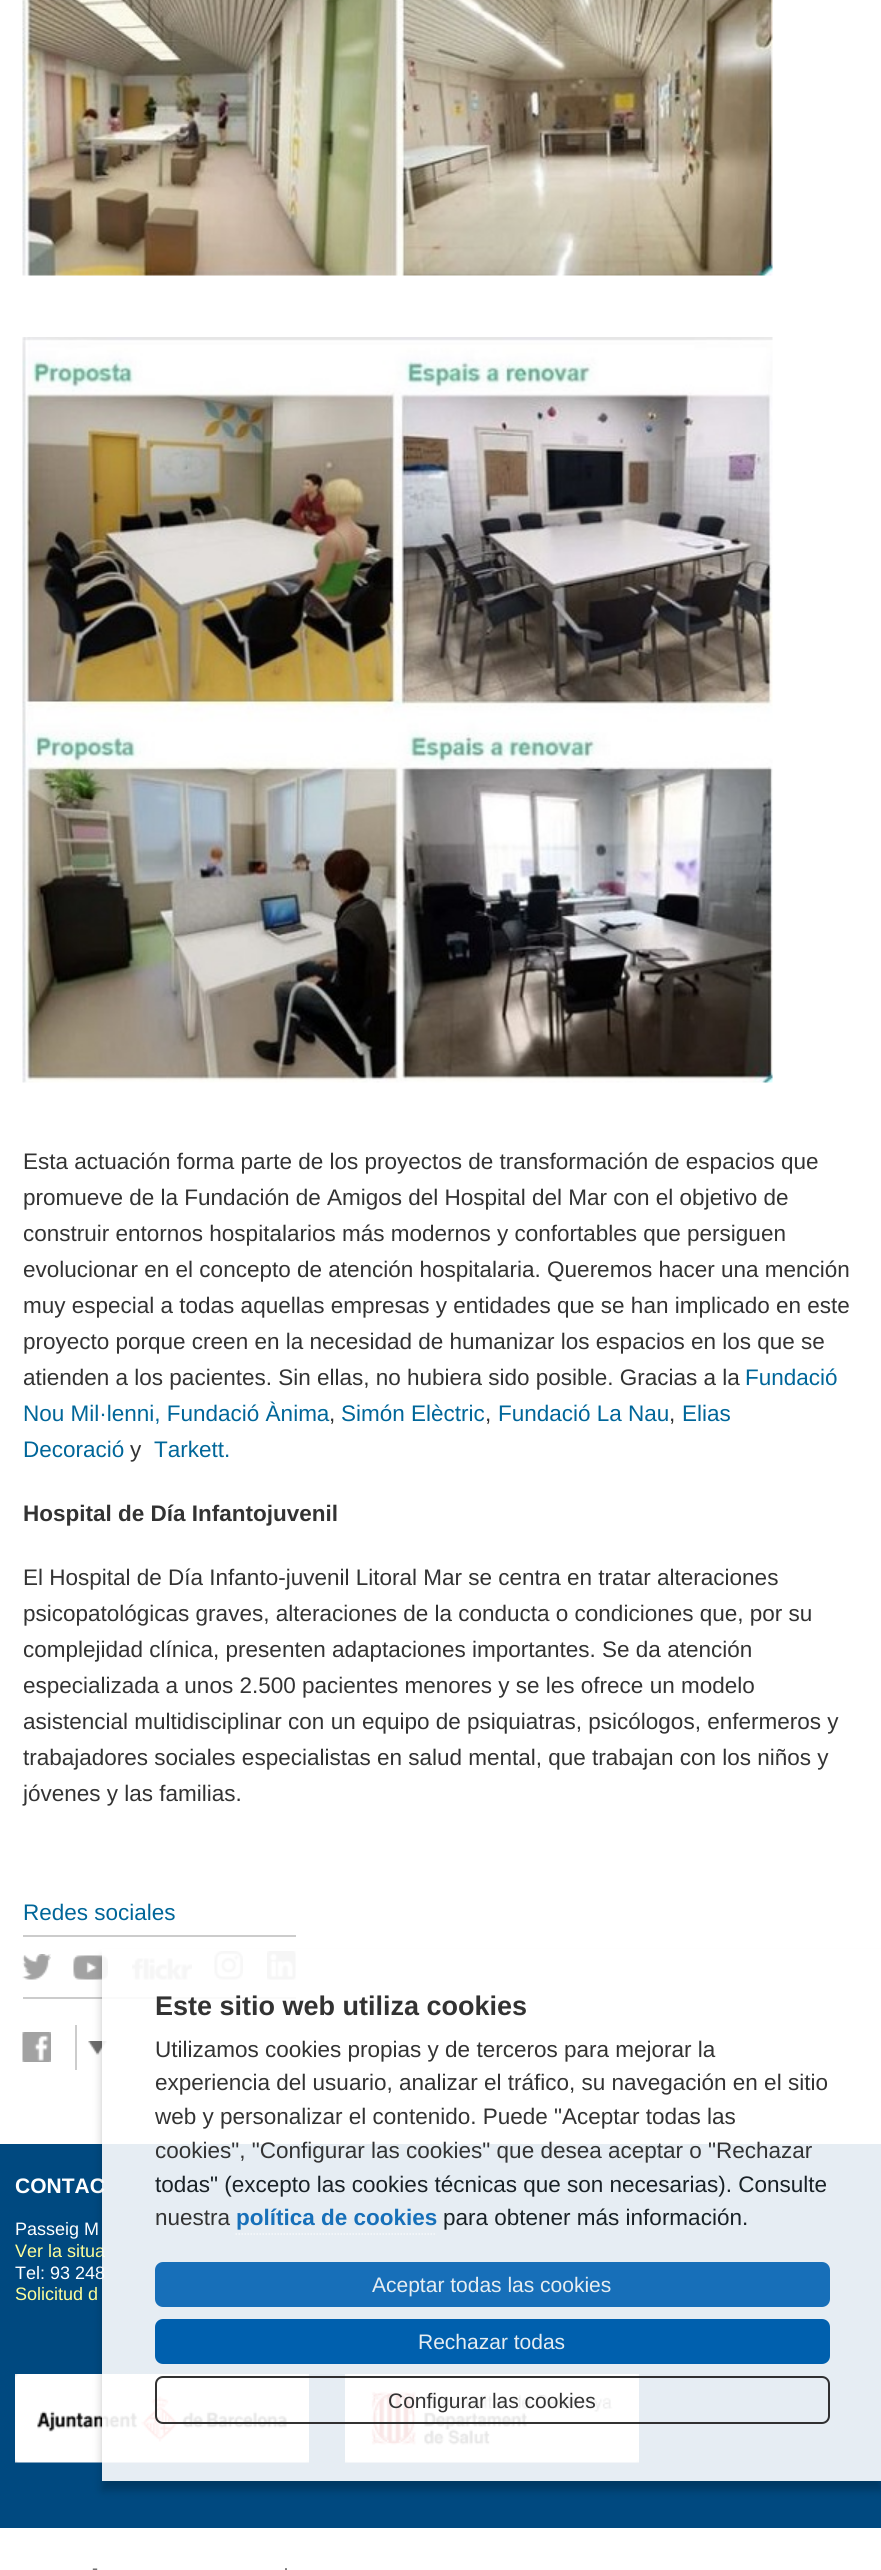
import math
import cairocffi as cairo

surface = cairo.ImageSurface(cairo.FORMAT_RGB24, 881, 2570)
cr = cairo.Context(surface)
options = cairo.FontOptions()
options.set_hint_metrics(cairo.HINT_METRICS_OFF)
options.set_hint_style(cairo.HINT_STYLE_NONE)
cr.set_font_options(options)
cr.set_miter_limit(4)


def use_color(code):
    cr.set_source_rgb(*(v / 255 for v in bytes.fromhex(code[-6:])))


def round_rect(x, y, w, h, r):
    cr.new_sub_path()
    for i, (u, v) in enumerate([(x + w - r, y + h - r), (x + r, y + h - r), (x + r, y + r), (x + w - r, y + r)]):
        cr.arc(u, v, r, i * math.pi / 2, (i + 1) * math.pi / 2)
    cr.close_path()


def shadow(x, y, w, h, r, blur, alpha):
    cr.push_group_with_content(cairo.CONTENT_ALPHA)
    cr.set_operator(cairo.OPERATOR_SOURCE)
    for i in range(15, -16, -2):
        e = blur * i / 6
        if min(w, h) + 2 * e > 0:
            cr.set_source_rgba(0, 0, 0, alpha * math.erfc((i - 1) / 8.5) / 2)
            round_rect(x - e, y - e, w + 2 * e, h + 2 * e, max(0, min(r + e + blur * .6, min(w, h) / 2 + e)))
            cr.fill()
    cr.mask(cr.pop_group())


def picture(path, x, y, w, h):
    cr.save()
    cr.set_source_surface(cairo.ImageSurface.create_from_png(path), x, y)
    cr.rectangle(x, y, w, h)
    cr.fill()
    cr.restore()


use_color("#ffffff")
cr.paint()
picture("img1.png", 22, 0, 751, 276)
picture("img2.png", 22, 337, 751, 746)
cr.select_font_face("Liberation Sans")
cr.set_font_size(22.5)
use_color("#333333")
cr.move_to(23, 1169)
cr.show_text("Esta actuación forma parte de los proyectos de transformación de espacios que")
cr.move_to(23, 1205)
cr.show_text("promueve de la Fundación de Amigos del Hospital del Mar con el objetivo de")
cr.move_to(23, 1241)
cr.show_text("construir entornos hospitalarios más modernos y confortables que persiguen")
cr.move_to(23, 1277)
cr.show_text("evolucionar en el concepto de atención hospitalaria. Queremos hacer una mención")
cr.move_to(23, 1313)
cr.show_text("muy especial a todas aquellas empresas y entidades que se han implicado en este")
cr.move_to(23, 1349)
cr.show_text("proyecto porque creen en la necesidad de humanizar los espacios en los que se")
cr.move_to(23, 1385)
cr.show_text("atienden a los pacientes. Sin ellas, no hubiera sido posible. Gracias a la")
use_color("#006699")
cr.move_to(745, 1385)
cr.show_text("Fundació")
cr.move_to(23, 1421)
cr.show_text("Nou Mil·lenni, Fundació Ànima")
use_color("#333333")
cr.move_to(329, 1421)
cr.show_text(",")
use_color("#006699")
cr.move_to(341, 1421)
cr.show_text("Simón Elèctric")
use_color("#333333")
cr.move_to(485, 1421)
cr.show_text(",")
use_color("#006699")
cr.move_to(498, 1421)
cr.show_text("Fundació La Nau")
use_color("#333333")
cr.move_to(669, 1421)
cr.show_text(",")
use_color("#006699")
cr.move_to(682, 1421)
cr.show_text("Elias")
cr.move_to(23, 1457)
cr.show_text("Decoració")
use_color("#333333")
cr.move_to(130, 1457)
cr.show_text("y")
use_color("#006699")
cr.move_to(154, 1457)
cr.show_text("Tarkett.")
cr.select_font_face("Liberation Sans", cairo.FONT_SLANT_NORMAL, cairo.FONT_WEIGHT_BOLD)
use_color("#333333")
cr.move_to(23, 1521)
cr.show_text("Hospital de Día Infantojuvenil")
cr.select_font_face("Liberation Sans")
cr.move_to(23, 1585)
cr.show_text("El Hospital de Día Infanto-juvenil Litoral Mar se centra en tratar alteraciones")
cr.move_to(23, 1621)
cr.show_text("psicopatológicas graves, alteraciones de la conducta o condiciones que, por su")
cr.move_to(23, 1657)
cr.show_text("complejidad clínica, presenten adaptaciones importantes. Se da atención")
cr.move_to(23, 1693)
cr.show_text("especializada a unos 2.500 pacientes menores y se les ofrece un modelo")
cr.move_to(23, 1729)
cr.show_text("asistencial multidisciplinar con un equipo de psiquiatras, psicólogos, enfermeros y")
cr.move_to(23, 1765)
cr.show_text("trabajadores sociales especialistas en salud mental, que trabajan con los niños y")
cr.move_to(23, 1801)
cr.show_text("jóvenes y las familias.")
use_color("#cccccc")
cr.rectangle(23, 1935, 273, 2)
cr.fill()
use_color("#006699")
cr.move_to(23, 1920)
cr.show_text("Redes sociales")
picture("img3.png", 22, 1954, 29, 26)
picture("img4.png", 73, 1955, 35, 25)
picture("img5.png", 132, 1958, 60, 22)
picture("img6.png", 214, 1951, 29, 29)
picture("img7.png", 267, 1951, 29, 29)
use_color("#cccccc")
cr.rectangle(23, 1997, 273, 2)
cr.fill()
picture("img8.png", 22, 2032, 29, 30)
picture("img9.png", 88, 2041, 19, 14)
cr.rectangle(75, 2025, 2, 45)
cr.fill()
use_color("#004980")
cr.rectangle(0, 2144, 881, 384)
cr.fill()
cr.select_font_face("Liberation Sans", cairo.FONT_SLANT_NORMAL, cairo.FONT_WEIGHT_BOLD)
cr.set_font_size(21)
use_color("#ffffff")
cr.move_to(15, 2193)
cr.show_text("CONTAC")
cr.select_font_face("Liberation Sans")
cr.set_font_size(18)
cr.move_to(15, 2235)
cr.show_text("Passeig M")
use_color("#ffff99")
cr.move_to(15, 2257)
cr.show_text("Ver la situa")
use_color("#ffffff")
cr.move_to(15, 2279)
cr.show_text("Tel: 93 248")
use_color("#ffff99")
cr.move_to(15, 2300)
cr.show_text("Solicitud d")
picture("img10.png", 15, 2374, 294, 89)
picture("img11.png", 345, 2374, 294, 89)
use_color("#666666")
cr.move_to(92, 2574)
cr.show_text("-")
cr.move_to(283, 2574)
cr.show_text("·")
cr.save()
cr.set_fill_rule(cairo.FILL_RULE_EVEN_ODD)
cr.new_path()
cr.move_to(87, 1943)
cr.line_to(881, 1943)
cr.line_to(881, 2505)
cr.line_to(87, 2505)
cr.close_path()
cr.move_to(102, 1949)
cr.line_to(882, 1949)
cr.line_to(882, 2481)
cr.line_to(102, 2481)
cr.close_path()
cr.clip()
use_color("#000000")
shadow(102, 1958, 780, 532, 0, 4.5, 0.23)
cr.restore()
cr.set_source_rgba(1, 1, 1, 0.9)
cr.rectangle(102, 1951, 779, 530)
cr.fill()
cr.select_font_face("Liberation Sans", cairo.FONT_SLANT_NORMAL, cairo.FONT_WEIGHT_BOLD)
cr.set_font_size(27)
use_color("#333333")
cr.move_to(155, 2015)
cr.show_text("Este sitio web utiliza cookies")
cr.select_font_face("Liberation Sans")
cr.set_font_size(22.5)
cr.move_to(155, 2057)
cr.show_text("Utilizamos cookies propias y de terceros para mejorar la")
cr.move_to(155, 2090)
cr.show_text("experiencia del usuario, analizar el tráfico, su navegación en el sitio")
cr.move_to(155, 2124)
cr.show_text("web y personalizar el contenido. Puede \"Aceptar todas las")
cr.move_to(155, 2158)
cr.show_text("cookies\", \"Configurar las cookies\" que desea aceptar o \"Rechazar")
use_color("#192126")
cr.move_to(155, 2192)
cr.show_text("todas\" (excepto las cookies técnicas que son necesarias). Consulte")
use_color("#333333")
cr.move_to(155, 2225)
cr.show_text("nuestra")
cr.select_font_face("Liberation Sans", cairo.FONT_SLANT_NORMAL, cairo.FONT_WEIGHT_BOLD)
use_color("#1770b9")
cr.move_to(236, 2225)
cr.show_text("política de cookies")
cr.new_path()
cr.move_to(235.5, 2234)
cr.line_to(436.5, 2234)
cr.set_source_rgba(1, 1, 1, 0.68)
cr.set_line_width(1.5)
cr.set_dash([1.5, 1.5])
cr.stroke()
cr.select_font_face("Liberation Sans")
use_color("#192126")
cr.move_to(443, 2225)
cr.show_text("para obtener más información.")
cr.set_source_rgba(0, 0.384, 0.702, 0.9)
round_rect(155, 2262, 675, 45, 8)
cr.fill()
cr.set_font_size(21)
use_color("#e6edf2")
cr.move_to(372, 2292)
cr.show_text("Aceptar todas las cookies")
use_color("#0060ae")
round_rect(155, 2319, 675, 45, 8)
cr.fill()
use_color("#e6edf2")
cr.move_to(418, 2349)
cr.show_text("Rechazar todas")
round_rect(156, 2377, 673, 46, 7)
cr.set_source_rgba(0.11, 0.11, 0.11, 0.9)
cr.set_line_width(2)
cr.set_dash([])
cr.stroke()
use_color("#333333")
cr.move_to(388, 2408)
cr.show_text("Configurar las cookies")
surface.write_to_png("result.png")
